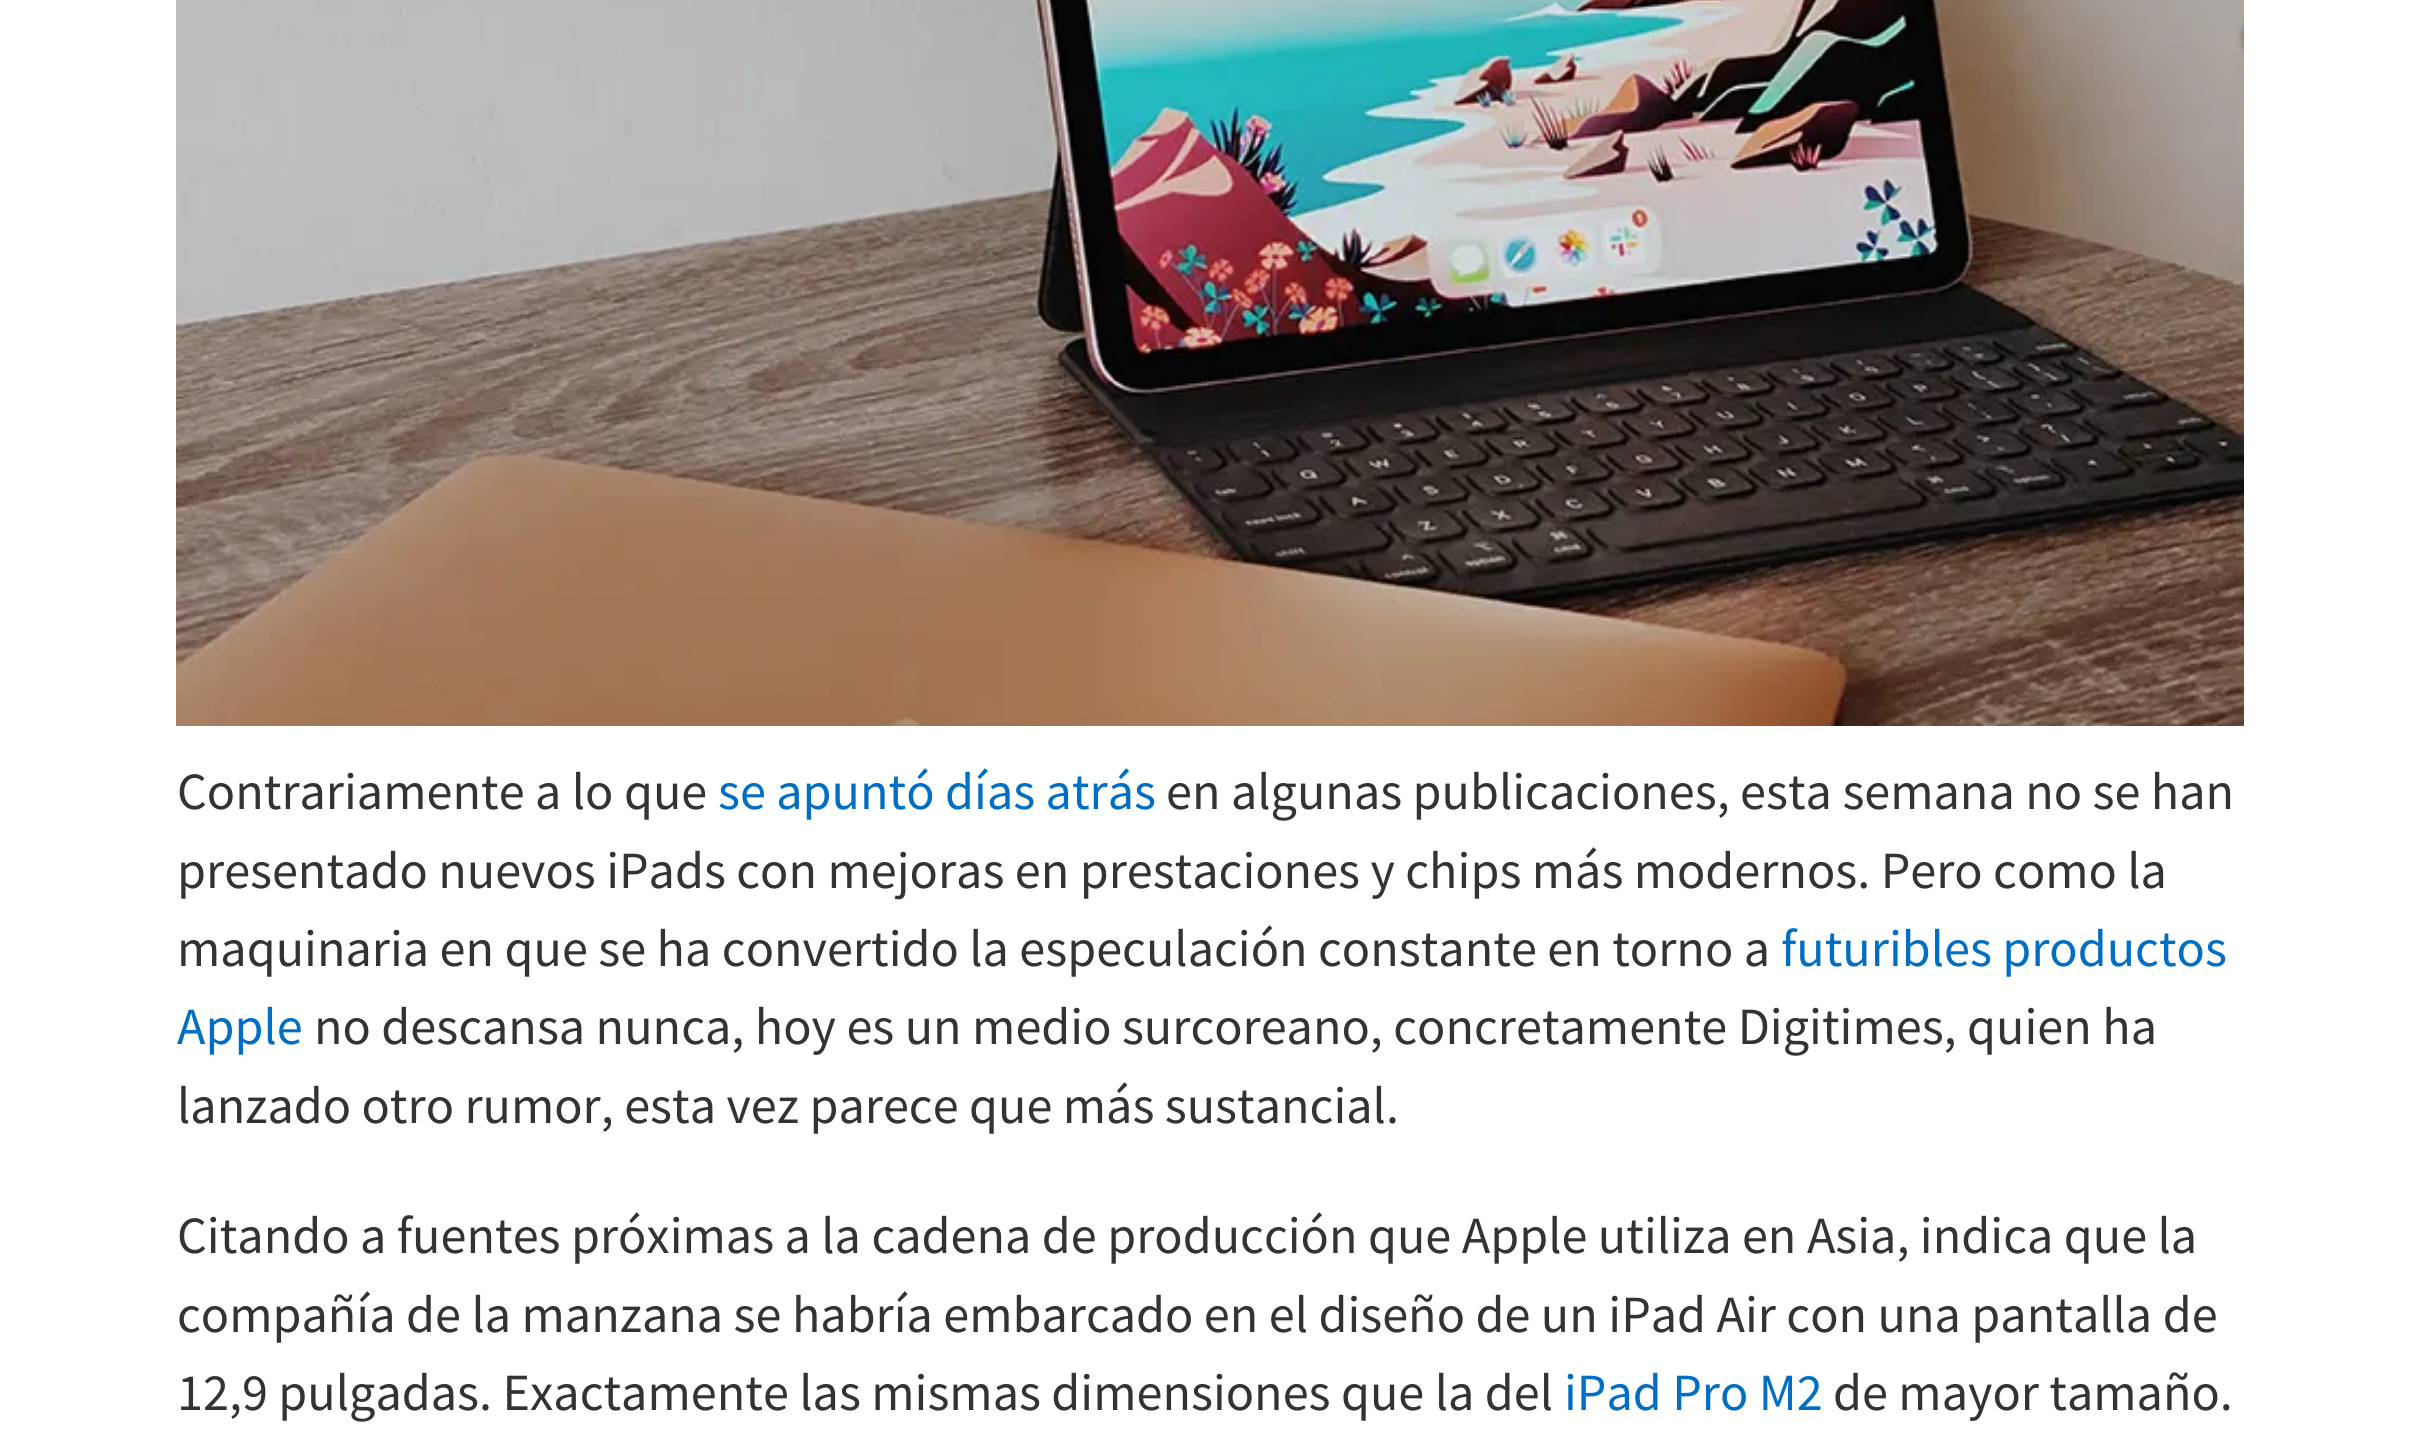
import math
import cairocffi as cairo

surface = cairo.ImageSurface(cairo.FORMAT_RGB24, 2416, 1439)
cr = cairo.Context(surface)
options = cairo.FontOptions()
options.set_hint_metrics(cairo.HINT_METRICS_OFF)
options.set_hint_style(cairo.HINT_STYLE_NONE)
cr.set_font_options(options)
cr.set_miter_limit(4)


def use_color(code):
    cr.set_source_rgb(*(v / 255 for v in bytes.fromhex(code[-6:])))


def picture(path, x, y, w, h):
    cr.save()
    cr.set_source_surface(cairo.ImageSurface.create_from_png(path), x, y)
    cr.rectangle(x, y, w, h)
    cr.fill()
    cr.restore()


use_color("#ffffff")
cr.paint()
picture("img1.png", 176, 0, 2068, 726)
cr.select_font_face("Source Sans Pro")
cr.set_font_size(52.25)
use_color("#333333")
cr.move_to(177, 809)
cr.show_text("Contrariamente a lo que")
use_color("#006ec3")
cr.move_to(718, 809)
cr.show_text("se apuntó días atrás")
use_color("#333333")
cr.move_to(1166, 809)
cr.show_text("en algunas publicaciones, esta semana no se han")
cr.move_to(177, 888)
cr.show_text("presentado nuevos iPads con mejoras en prestaciones y chips más modernos. Pero como la")
cr.move_to(177, 966)
cr.show_text("maquinaria en que se ha convertido la especulación constante en torno a")
use_color("#006ec3")
cr.move_to(1781, 966)
cr.show_text("futuribles productos")
cr.move_to(177, 1044)
cr.show_text("Apple")
use_color("#333333")
cr.move_to(314, 1044)
cr.show_text("no descansa nunca, hoy es un medio surcoreano, concretamente Digitimes, quien ha")
cr.move_to(177, 1123)
cr.show_text("lanzado otro rumor, esta vez parece que más sustancial.")
cr.move_to(177, 1253)
cr.show_text("Citando a fuentes próximas a la cadena de producción que Apple utiliza en Asia, indica que la")
cr.move_to(177, 1332)
cr.show_text("compañía de la manzana se habría embarcado en el diseño de un iPad Air con una pantalla de")
cr.move_to(177, 1410)
cr.show_text("12,9 pulgadas. Exactamente las mismas dimensiones que la del")
use_color("#006ec3")
cr.move_to(1564, 1410)
cr.show_text("iPad Pro M2")
use_color("#333333")
cr.move_to(1833, 1410)
cr.show_text("de mayor tamaño.")
surface.write_to_png("result.png")
